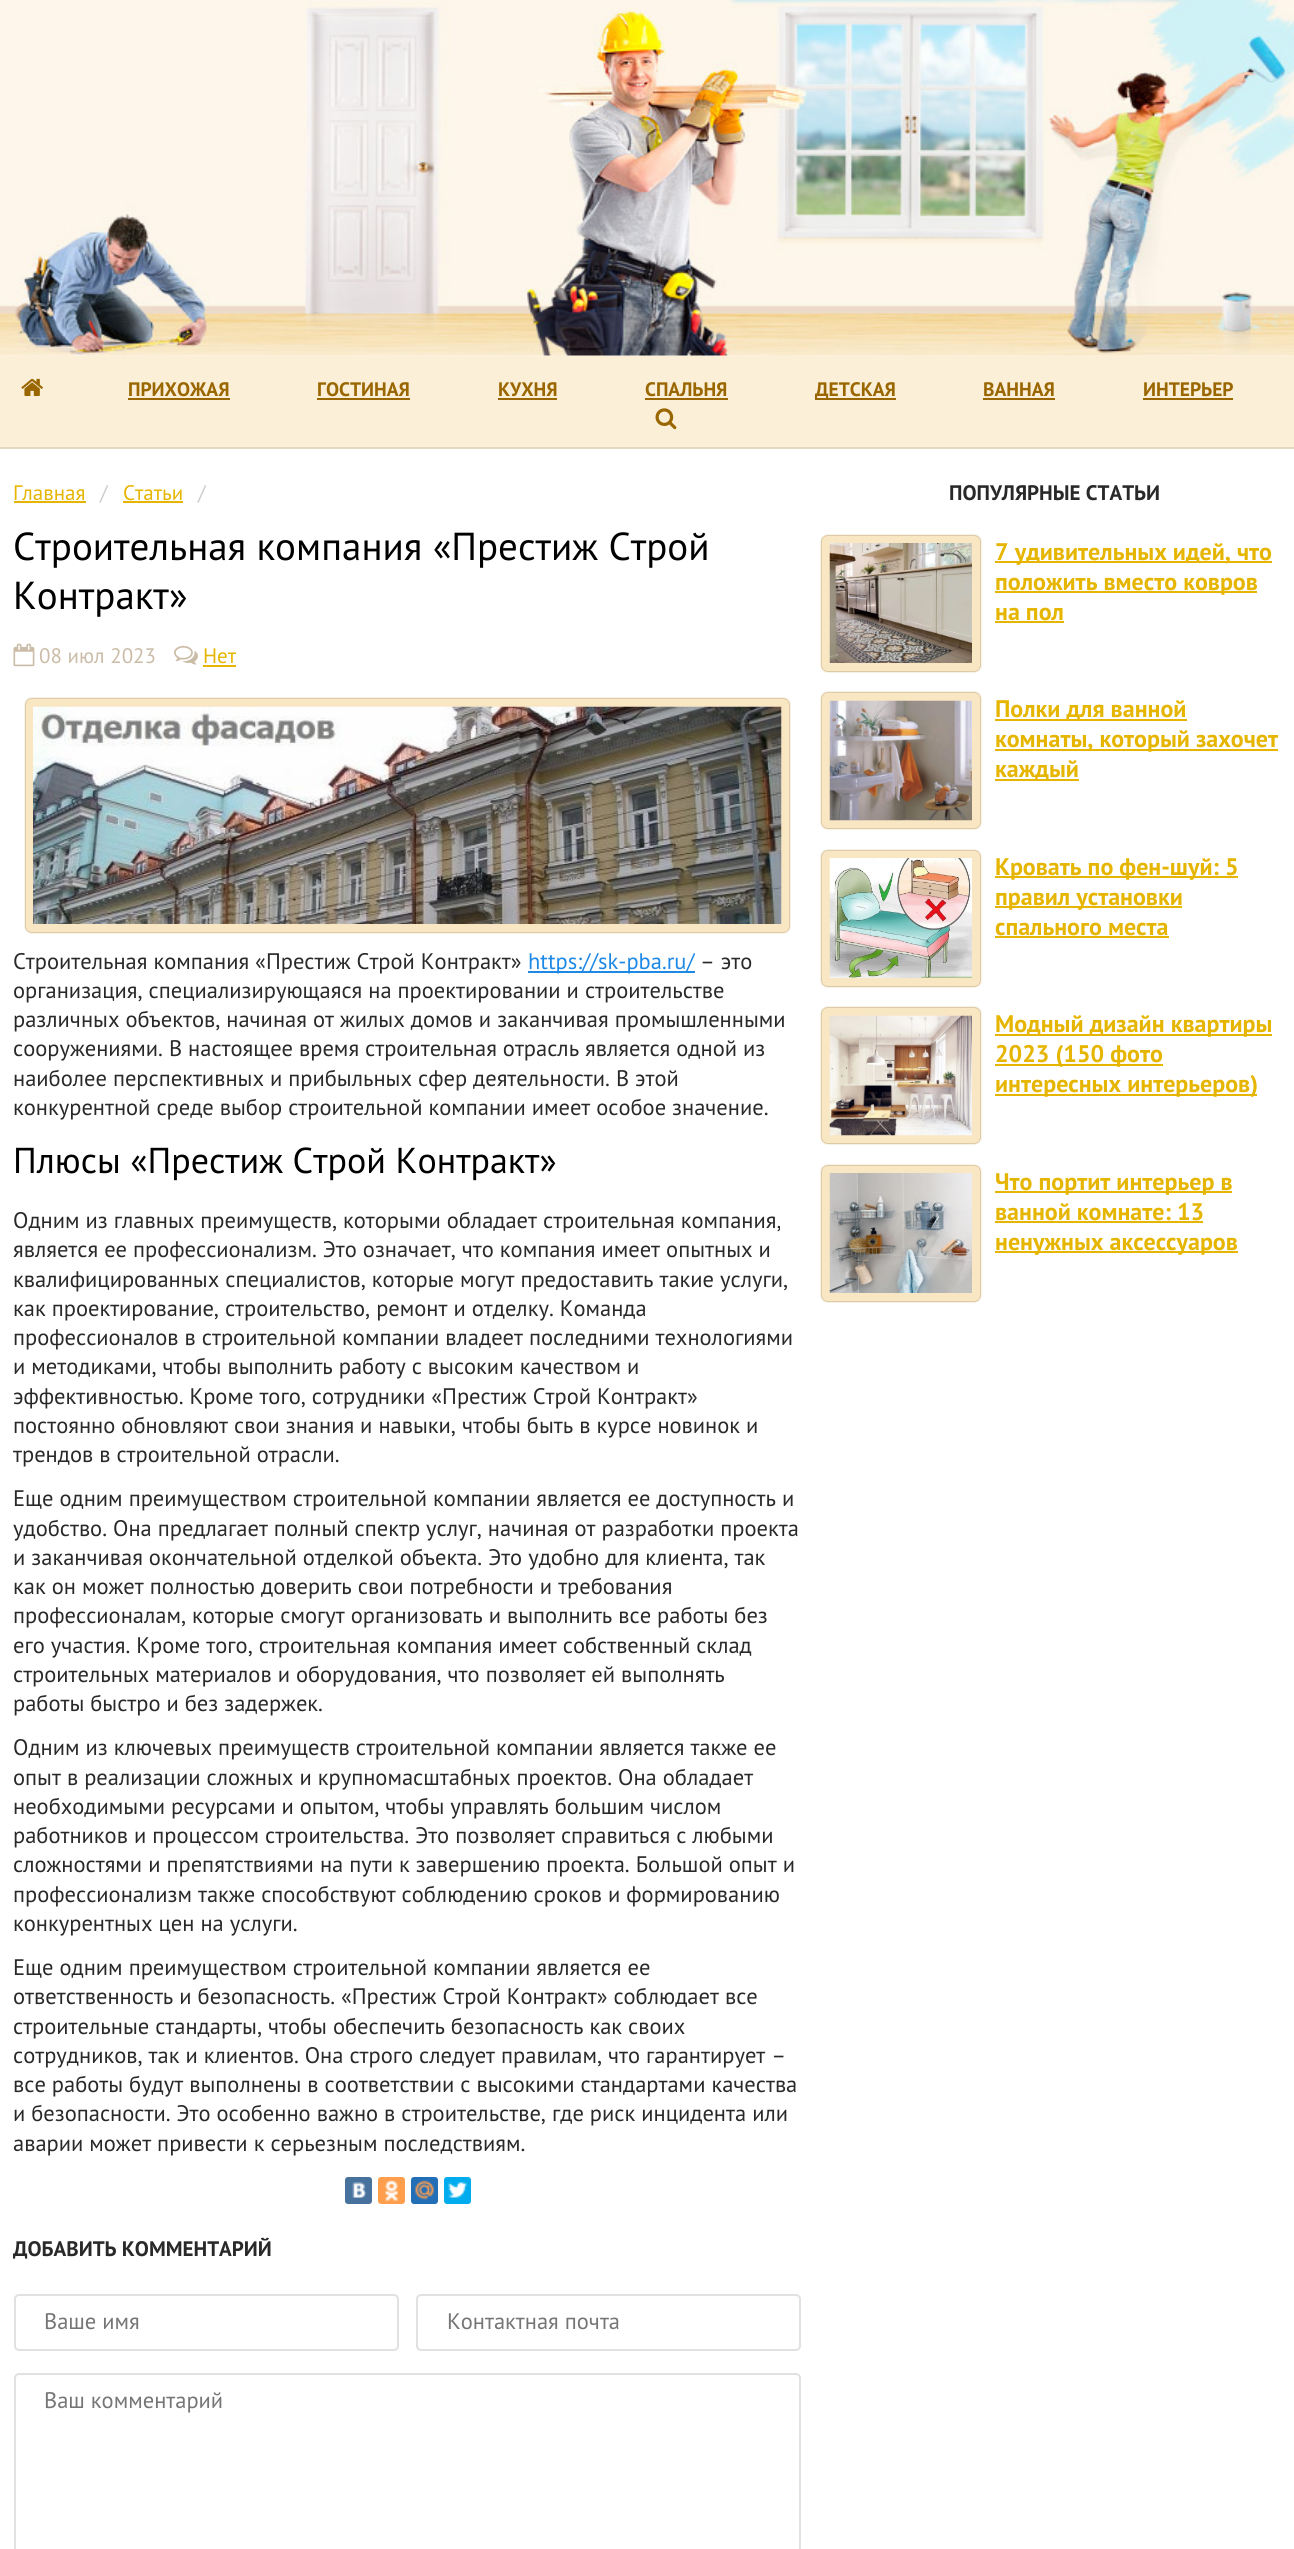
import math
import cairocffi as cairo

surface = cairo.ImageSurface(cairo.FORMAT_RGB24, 1294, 2549)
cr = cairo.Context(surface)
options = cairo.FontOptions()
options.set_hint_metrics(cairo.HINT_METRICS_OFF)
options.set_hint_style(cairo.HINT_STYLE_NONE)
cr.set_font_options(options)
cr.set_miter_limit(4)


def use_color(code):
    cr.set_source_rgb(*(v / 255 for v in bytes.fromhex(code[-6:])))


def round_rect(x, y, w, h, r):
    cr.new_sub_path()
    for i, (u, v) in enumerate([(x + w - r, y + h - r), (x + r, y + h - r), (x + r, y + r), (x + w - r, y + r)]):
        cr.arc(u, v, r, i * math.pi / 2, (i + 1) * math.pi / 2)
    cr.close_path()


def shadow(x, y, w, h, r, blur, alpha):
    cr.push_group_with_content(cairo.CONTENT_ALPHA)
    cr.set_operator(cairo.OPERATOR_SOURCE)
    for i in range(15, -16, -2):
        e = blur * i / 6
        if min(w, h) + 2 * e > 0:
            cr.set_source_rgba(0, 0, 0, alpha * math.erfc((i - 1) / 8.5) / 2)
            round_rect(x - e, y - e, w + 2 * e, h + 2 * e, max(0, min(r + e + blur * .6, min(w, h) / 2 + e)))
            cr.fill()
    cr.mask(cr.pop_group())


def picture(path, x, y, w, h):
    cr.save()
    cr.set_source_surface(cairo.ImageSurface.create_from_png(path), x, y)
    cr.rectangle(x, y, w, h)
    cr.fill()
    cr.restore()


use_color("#ffffff")
cr.paint()
picture("img1.png", 0, 355, 1294, 1)
picture("img2.png", 0, 0, 1294, 356)
use_color("#fbefd7")
cr.rectangle(0, 356, 1294, 91)
cr.fill()
use_color("#e5d8c2")
cr.rectangle(0, 447, 1294, 2)
cr.fill()
picture("img3.png", 21, 378, 22, 18)
cr.select_font_face("PT Sans", cairo.FONT_SLANT_NORMAL, cairo.FONT_WEIGHT_BOLD)
cr.set_font_size(19.5)
use_color("#996600")
cr.move_to(128, 396)
cr.show_text("ПРИХОЖАЯ")
cr.rectangle(128, 398, 102, 2)
cr.fill()
cr.move_to(317, 396)
cr.show_text("ГОСТИНАЯ")
cr.rectangle(317, 398, 93, 2)
cr.fill()
cr.move_to(498, 396)
cr.show_text("КУХНЯ")
cr.rectangle(498, 398, 59, 2)
cr.fill()
cr.move_to(645, 396)
cr.show_text("СПАЛЬНЯ")
cr.rectangle(645, 398, 83, 2)
cr.fill()
cr.rectangle(815, 398, 81, 2)
cr.fill()
cr.move_to(815, 396)
cr.show_text("ДЕТСКАЯ")
cr.move_to(983, 396)
cr.show_text("ВАННАЯ")
cr.rectangle(983, 398, 72, 2)
cr.fill()
cr.move_to(1143, 396)
cr.show_text("ИНТЕРЬЕР")
cr.rectangle(1143, 398, 90, 2)
cr.fill()
picture("img4.png", 655, 408, 22, 22)
cr.select_font_face("PT Sans")
cr.set_font_size(21)
use_color("#e6b500")
cr.move_to(13, 500)
cr.show_text("Главная")
cr.rectangle(14, 501, 72, 2)
cr.fill()
use_color("#cccccc")
cr.move_to(100, 500)
cr.show_text("/")
use_color("#e6b500")
cr.move_to(123, 500)
cr.show_text("Статьи")
cr.rectangle(123, 501, 60, 2)
cr.fill()
use_color("#cccccc")
cr.move_to(198, 500)
cr.show_text("/")
cr.set_font_size(39)
use_color("#000000")
cr.move_to(13, 560)
cr.show_text("Строительная компания «Престиж Строй")
cr.move_to(13, 609)
cr.show_text("Контракт»")
picture("img5.png", 13, 643, 22, 24)
cr.set_font_size(21)
use_color("#cbbca8")
cr.move_to(39, 663)
cr.show_text("08 июл 2023")
picture("img6.png", 174, 645, 24, 20)
use_color("#e6b500")
cr.move_to(203, 663)
cr.show_text("Нет")
cr.rectangle(203, 665, 33, 2)
cr.fill()
use_color("#996600")
shadow(26, 699, 763, 233, 5, 1, 1)
round_rect(30, 703, 755, 225, 1)
use_color("#f9e6c3")
cr.set_line_width(8)
cr.stroke()
picture("img7.png", 33, 706, 749, 218)
cr.set_font_size(22.5)
use_color("#292929")
cr.move_to(13, 969)
cr.show_text("Строительная компания «Престиж Строй Контракт»")
use_color("#1e88e5")
cr.rectangle(528, 971, 167, 2)
cr.fill()
cr.move_to(528, 969)
cr.show_text("https://sk-pba.ru/")
use_color("#292929")
cr.move_to(700, 969)
cr.show_text("– это")
cr.move_to(13, 998)
cr.show_text("организация, специализирующаяся на проектировании и строительстве")
cr.move_to(13, 1027)
cr.show_text("различных объектов, начиная от жилых домов и заканчивая промышленными")
cr.move_to(13, 1056)
cr.show_text("сооружениями. В настоящее время строительная отрасль является одной из")
cr.move_to(13, 1086)
cr.show_text("наиболее перспективных и прибыльных сфер деятельности. В этой")
cr.move_to(13, 1115)
cr.show_text("конкурентной среде выбор строительной компании имеет особое значение.")
cr.set_font_size(36)
use_color("#000000")
cr.move_to(13, 1173)
cr.show_text("Плюсы «Престиж Строй Контракт»")
cr.set_font_size(22.5)
use_color("#292929")
cr.move_to(13, 1228)
cr.show_text("Одним из главных преимуществ, которыми обладает строительная компания,")
cr.move_to(13, 1257)
cr.show_text("является ее профессионализм. Это означает, что компания имеет опытных и")
cr.move_to(13, 1287)
cr.show_text("квалифицированных специалистов, которые могут предоставить такие услуги,")
cr.move_to(13, 1316)
cr.show_text("как проектирование, строительство, ремонт и отделку. Команда")
cr.move_to(13, 1345)
cr.show_text("профессионалов в строительной компании владеет последними технологиями")
cr.move_to(13, 1374)
cr.show_text("и методиками, чтобы выполнить работу с высоким качеством и")
cr.move_to(13, 1404)
cr.show_text("эффективностью. Кроме того, сотрудники «Престиж Строй Контракт»")
cr.move_to(13, 1433)
cr.show_text("постоянно обновляют свои знания и навыки, чтобы быть в курсе новинок и")
cr.move_to(13, 1462)
cr.show_text("трендов в строительной отрасли.")
cr.move_to(13, 1506)
cr.show_text("Еще одним преимуществом строительной компании является ее доступность и")
cr.move_to(13, 1536)
cr.show_text("удобство. Она предлагает полный спектр услуг, начиная от разработки проекта")
cr.move_to(13, 1565)
cr.show_text("и заканчивая окончательной отделкой объекта. Это удобно для клиента, так")
cr.move_to(13, 1594)
cr.show_text("как он может полностью доверить свои потребности и требования")
cr.move_to(13, 1623)
cr.show_text("профессионалам, которые смогут организовать и выполнить все работы без")
cr.move_to(13, 1653)
cr.show_text("его участия. Кроме того, строительная компания имеет собственный склад")
cr.move_to(13, 1682)
cr.show_text("строительных материалов и оборудования, что позволяет ей выполнять")
cr.move_to(13, 1711)
cr.show_text("работы быстро и без задержек.")
cr.move_to(13, 1755)
cr.show_text("Одним из ключевых преимуществ строительной компании является также ее")
cr.move_to(13, 1785)
cr.show_text("опыт в реализации сложных и крупномасштабных проектов. Она обладает")
cr.move_to(13, 1814)
cr.show_text("необходимыми ресурсами и опытом, чтобы управлять большим числом")
cr.move_to(13, 1843)
cr.show_text("работников и процессом строительства. Это позволяет справиться с любыми")
cr.move_to(13, 1872)
cr.show_text("сложностями и препятствиями на пути к завершению проекта. Большой опыт и")
cr.move_to(13, 1902)
cr.show_text("профессионализм также способствуют соблюдению сроков и формированию")
cr.move_to(13, 1931)
cr.show_text("конкурентных цен на услуги.")
cr.move_to(13, 1975)
cr.show_text("Еще одним преимуществом строительной компании является ее")
cr.move_to(13, 2004)
cr.show_text("ответственность и безопасность. «Престиж Строй Контракт» соблюдает все")
cr.move_to(13, 2034)
cr.show_text("строительные стандарты, чтобы обеспечить безопасность как своих")
cr.move_to(13, 2063)
cr.show_text("сотрудников, так и клиентов. Она строго следует правилам, что гарантирует –")
cr.move_to(13, 2092)
cr.show_text("все работы будут выполнены в соответствии с высокими стандартами качества")
cr.move_to(13, 2121)
cr.show_text("и безопасности. Это особенно важно в строительстве, где риск инцидента или")
cr.move_to(13, 2151)
cr.show_text("аварии может привести к серьезным последствиям.")
use_color("#48729e")
round_rect(345, 2177, 27, 27, 3)
cr.fill()
picture("img8.png", 352, 2182, 15, 16)
use_color("#ff9f4d")
round_rect(378, 2177, 27, 27, 3)
cr.fill()
picture("img9.png", 385, 2180, 13, 21)
use_color("#226eb7")
round_rect(411, 2177, 27, 27, 3)
cr.fill()
picture("img10.png", 415, 2180, 19, 20)
use_color("#00aced")
round_rect(444, 2177, 27, 27, 3)
cr.fill()
picture("img11.png", 448, 2182, 19, 16)
cr.select_font_face("PT Sans", cairo.FONT_SLANT_NORMAL, cairo.FONT_WEIGHT_BOLD)
cr.set_font_size(21)
use_color("#292929")
cr.move_to(13, 2256)
cr.show_text("ДОБАВИТЬ КОММЕНТАРИЙ")
round_rect(15, 2295, 383, 55, 4)
use_color("#e1e1e1")
cr.set_line_width(2)
cr.stroke()
cr.select_font_face("PT Sans")
cr.set_font_size(22.5)
use_color("#757575")
cr.move_to(44, 2329)
cr.show_text("Ваше имя")
round_rect(417, 2295, 383, 55, 4)
use_color("#e1e1e1")
cr.stroke()
use_color("#757575")
cr.move_to(447, 2329)
cr.show_text("Контактная почта")
round_rect(15, 2374, 785, 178, 4)
use_color("#e1e1e1")
cr.stroke()
use_color("#757575")
cr.move_to(44, 2408)
cr.show_text("Ваш комментарий")
cr.select_font_face("PT Sans", cairo.FONT_SLANT_NORMAL, cairo.FONT_WEIGHT_BOLD)
cr.set_font_size(21)
use_color("#292929")
cr.move_to(949, 500)
cr.show_text("ПОПУЛЯРНЫЕ СТАТЬИ")
use_color("#996600")
shadow(822, 536, 158, 135, 5, 1, 1)
round_rect(826, 540, 150, 127, 1)
use_color("#f9e6c3")
cr.set_line_width(8)
cr.stroke()
picture("img12.png", 829, 543, 143, 120)
use_color("#e6b500")
cr.rectangle(995, 561, 277, 2)
cr.fill()
cr.set_font_size(24)
cr.move_to(995, 560)
cr.show_text("7 удивительных идей, что")
cr.rectangle(995, 591, 262, 2)
cr.fill()
cr.move_to(995, 590)
cr.show_text("положить вместо ковров")
cr.move_to(995, 620)
cr.show_text("на пол")
cr.rectangle(995, 621, 69, 2)
cr.fill()
use_color("#996600")
shadow(822, 693, 158, 135, 5, 1, 1)
round_rect(826, 697, 150, 127, 1)
use_color("#f9e6c3")
cr.stroke()
picture("img13.png", 829, 700, 143, 121)
use_color("#e6b500")
cr.rectangle(995, 719, 192, 2)
cr.fill()
cr.move_to(995, 717)
cr.show_text("Полки для ванной")
cr.rectangle(995, 749, 283, 2)
cr.fill()
cr.move_to(995, 747)
cr.show_text("комнаты, который захочет")
cr.rectangle(995, 779, 84, 2)
cr.fill()
cr.move_to(995, 777)
cr.show_text("каждый")
use_color("#996600")
shadow(822, 851, 158, 135, 5, 1, 1)
round_rect(826, 855, 150, 127, 1)
use_color("#f9e6c3")
cr.stroke()
picture("img14.png", 829, 858, 143, 120)
use_color("#e6b500")
cr.rectangle(995, 876, 243, 2)
cr.fill()
cr.move_to(995, 875)
cr.show_text("Кровать по фен-шуй: 5")
cr.rectangle(995, 906, 187, 2)
cr.fill()
cr.move_to(995, 905)
cr.show_text("правил установки")
cr.move_to(995, 935)
cr.show_text("спального места")
cr.rectangle(995, 936, 174, 2)
cr.fill()
use_color("#996600")
shadow(822, 1008, 158, 135, 5, 1, 1)
round_rect(826, 1012, 150, 127, 1)
use_color("#f9e6c3")
cr.stroke()
picture("img15.png", 829, 1015, 143, 121)
use_color("#e6b500")
cr.rectangle(995, 1034, 277, 2)
cr.fill()
cr.move_to(995, 1032)
cr.show_text("Модный дизайн квартиры")
cr.rectangle(995, 1064, 168, 2)
cr.fill()
cr.move_to(995, 1062)
cr.show_text("2023 (150 фото")
cr.rectangle(995, 1094, 262, 2)
cr.fill()
cr.move_to(995, 1092)
cr.show_text("интересных интерьеров)")
use_color("#996600")
shadow(822, 1166, 158, 135, 5, 1, 1)
round_rect(826, 1170, 150, 127, 1)
use_color("#f9e6c3")
cr.stroke()
picture("img16.png", 829, 1173, 143, 120)
use_color("#e6b500")
cr.rectangle(995, 1191, 237, 2)
cr.fill()
cr.move_to(995, 1190)
cr.show_text("Что портит интерьер в")
cr.move_to(995, 1220)
cr.show_text("ванной комнате: 13")
cr.rectangle(995, 1221, 208, 2)
cr.fill()
cr.rectangle(995, 1251, 243, 2)
cr.fill()
cr.move_to(995, 1250)
cr.show_text("ненужных аксессуаров")
surface.write_to_png("result.png")
